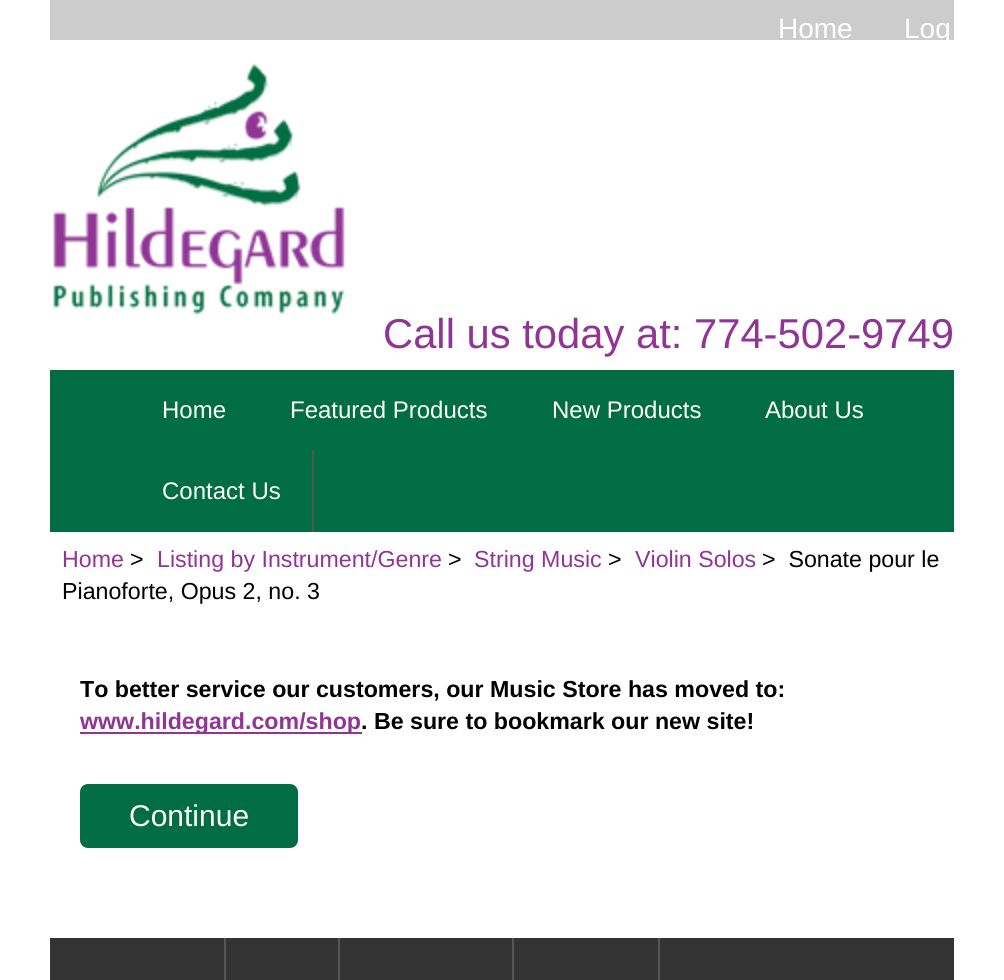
import math
import cairocffi as cairo

surface = cairo.ImageSurface(cairo.FORMAT_RGB24, 1004, 980)
cr = cairo.Context(surface)
options = cairo.FontOptions()
options.set_hint_metrics(cairo.HINT_METRICS_OFF)
options.set_hint_style(cairo.HINT_STYLE_NONE)
cr.set_font_options(options)
cr.set_miter_limit(4)


def use_color(code):
    cr.set_source_rgb(*(v / 255 for v in bytes.fromhex(code[-6:])))


def round_rect(x, y, w, h, r):
    cr.new_sub_path()
    for i, (u, v) in enumerate([(x + w - r, y + h - r), (x + r, y + h - r), (x + r, y + r), (x + w - r, y + r)]):
        cr.arc(u, v, r, i * math.pi / 2, (i + 1) * math.pi / 2)
    cr.close_path()


def picture(path, x, y, w, h):
    cr.save()
    cr.set_source_surface(cairo.ImageSurface.create_from_png(path), x, y)
    cr.rectangle(x, y, w, h)
    cr.fill()
    cr.restore()


use_color("#ffffff")
cr.paint()
use_color("#cccccc")
cr.rectangle(50, 0, 904, 40)
cr.fill()
cr.select_font_face("Liberation Sans")
cr.set_font_size(28)
use_color("#ffffff")
cr.move_to(778, 38)
cr.show_text("Home")
cr.move_to(904, 38)
cr.show_text("Log")
picture("img1.png", 53, 63, 292, 252)
cr.set_font_size(41.75)
use_color("#903596")
cr.move_to(383, 348)
cr.show_text("Call us today at: 774-502-9749")
use_color("#016d44")
cr.rectangle(50, 370, 904, 162)
cr.fill()
cr.set_font_size(24)
use_color("#ffffff")
cr.move_to(162, 418)
cr.show_text("Home")
cr.move_to(290, 418)
cr.show_text("Featured Products")
cr.move_to(552, 418)
cr.show_text("New Products")
cr.move_to(765, 418)
cr.show_text("About Us")
use_color("#555555")
cr.rectangle(312, 450, 2, 82)
cr.fill()
use_color("#ffffff")
cr.move_to(162, 499)
cr.show_text("Contact Us")
cr.set_font_size(23.2)
use_color("#903596")
cr.move_to(62, 567)
cr.show_text("Home")
use_color("#000000")
cr.move_to(130, 567)
cr.show_text(">")
use_color("#903596")
cr.move_to(157, 567)
cr.show_text("Listing by Instrument/Genre")
use_color("#000000")
cr.move_to(448, 567)
cr.show_text(">")
use_color("#903596")
cr.move_to(474, 567)
cr.show_text("String Music")
use_color("#000000")
cr.move_to(608, 567)
cr.show_text(">")
use_color("#903596")
cr.move_to(635, 567)
cr.show_text("Violin Solos")
use_color("#000000")
cr.move_to(762, 567)
cr.show_text(">  Sonate pour le")
cr.move_to(62, 599)
cr.show_text("Pianoforte, Opus 2, no. 3")
cr.select_font_face("Liberation Sans", cairo.FONT_SLANT_NORMAL, cairo.FONT_WEIGHT_BOLD)
cr.move_to(80, 697)
cr.show_text("To better service our customers, our Music Store has moved to:")
use_color("#903596")
cr.rectangle(80, 732, 282, 2)
cr.fill()
cr.move_to(80, 729)
cr.show_text("www.hildegard.com/shop")
use_color("#000000")
cr.move_to(361, 729)
cr.show_text(". Be sure to bookmark our new site!")
use_color("#016d44")
round_rect(80, 784, 218, 64, 8)
cr.fill()
cr.select_font_face("Liberation Sans")
cr.set_font_size(30)
use_color("#ffffff")
cr.move_to(129, 826)
cr.show_text("Continue")
use_color("#333333")
cr.rectangle(50, 938, 904, 42)
cr.fill()
use_color("#555555")
cr.rectangle(224, 938, 2, 42)
cr.fill()
cr.rectangle(338, 938, 2, 42)
cr.fill()
cr.rectangle(512, 938, 2, 42)
cr.fill()
cr.rectangle(658, 938, 2, 42)
cr.fill()
surface.write_to_png("result.png")
